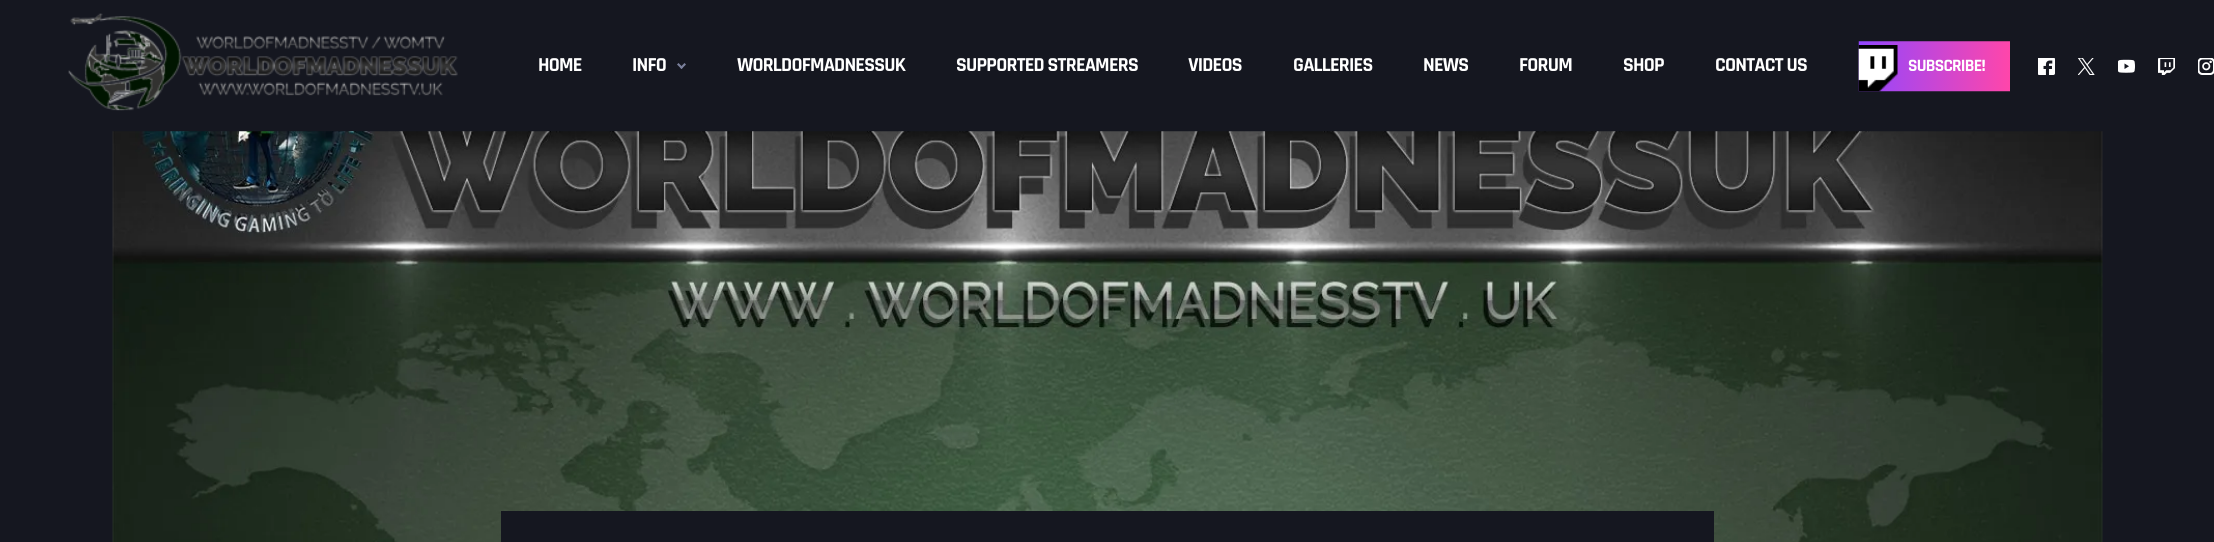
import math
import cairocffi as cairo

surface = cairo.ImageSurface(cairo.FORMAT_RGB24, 2214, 542)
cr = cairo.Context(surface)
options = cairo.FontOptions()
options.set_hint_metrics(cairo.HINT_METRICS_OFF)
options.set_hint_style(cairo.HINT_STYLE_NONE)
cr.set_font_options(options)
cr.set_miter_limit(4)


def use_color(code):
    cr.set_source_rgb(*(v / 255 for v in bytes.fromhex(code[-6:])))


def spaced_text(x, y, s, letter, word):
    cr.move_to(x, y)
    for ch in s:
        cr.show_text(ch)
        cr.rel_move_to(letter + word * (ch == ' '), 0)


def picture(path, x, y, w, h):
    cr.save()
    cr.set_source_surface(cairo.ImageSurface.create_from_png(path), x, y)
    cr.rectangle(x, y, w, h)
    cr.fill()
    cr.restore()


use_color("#151720")
cr.paint()
picture("img1.png", 68, 13, 390, 98)
cr.select_font_face("Rajdhani", cairo.FONT_SLANT_NORMAL, cairo.FONT_WEIGHT_BOLD)
cr.set_font_size(20)
use_color("#ffffff")
spaced_text(538, 71, "HOME", -0.75, 0)
spaced_text(632, 71, "INFO", -0.75, 0)
use_color("#7a809b")
cr.new_path()
cr.move_to(680, 67.5)
cr.line_to(684.5, 63)
cr.line_to(686, 64.5)
cr.line_to(681.5, 69)
cr.close_path()
cr.fill()
cr.new_path()
cr.move_to(678.5, 63)
cr.line_to(683, 67.5)
cr.line_to(681.5, 69)
cr.line_to(677, 64.5)
cr.close_path()
cr.fill()
use_color("#ffffff")
spaced_text(737, 71, "WORLDOFMADNESSUK", -0.75, 0)
spaced_text(956, 71, "SUPPORTED STREAMERS", -0.75, 0)
spaced_text(1188, 71, "VIDEOS", -0.75, 0)
spaced_text(1293, 71, "GALLERIES", -0.75, 0)
spaced_text(1423, 71, "NEWS", -0.75, 0)
spaced_text(1519, 71, "FORUM", -0.75, 0)
spaced_text(1623, 71, "SHOP", -0.75, 0)
spaced_text(1715, 71, "CONTACT US", -0.75, 0)
picture("img2.png", 1858, 41, 152, 51)
cr.set_font_size(17.5)
spaced_text(1908, 71, "SUBSCRIBE!", -0.75, 0)
picture("img3.png", 2038, 58, 17, 17)
picture("img4.png", 2078, 58, 17, 17)
picture("img5.png", 2118, 59, 17, 14)
picture("img6.png", 2158, 58, 17, 17)
picture("img7.png", 2198, 58, 16, 17)
picture("img8.png", 112, 131, 1991, 411)
use_color("#151720")
cr.rectangle(501, 511, 1213, 31)
cr.fill()
surface.write_to_png("result.png")
